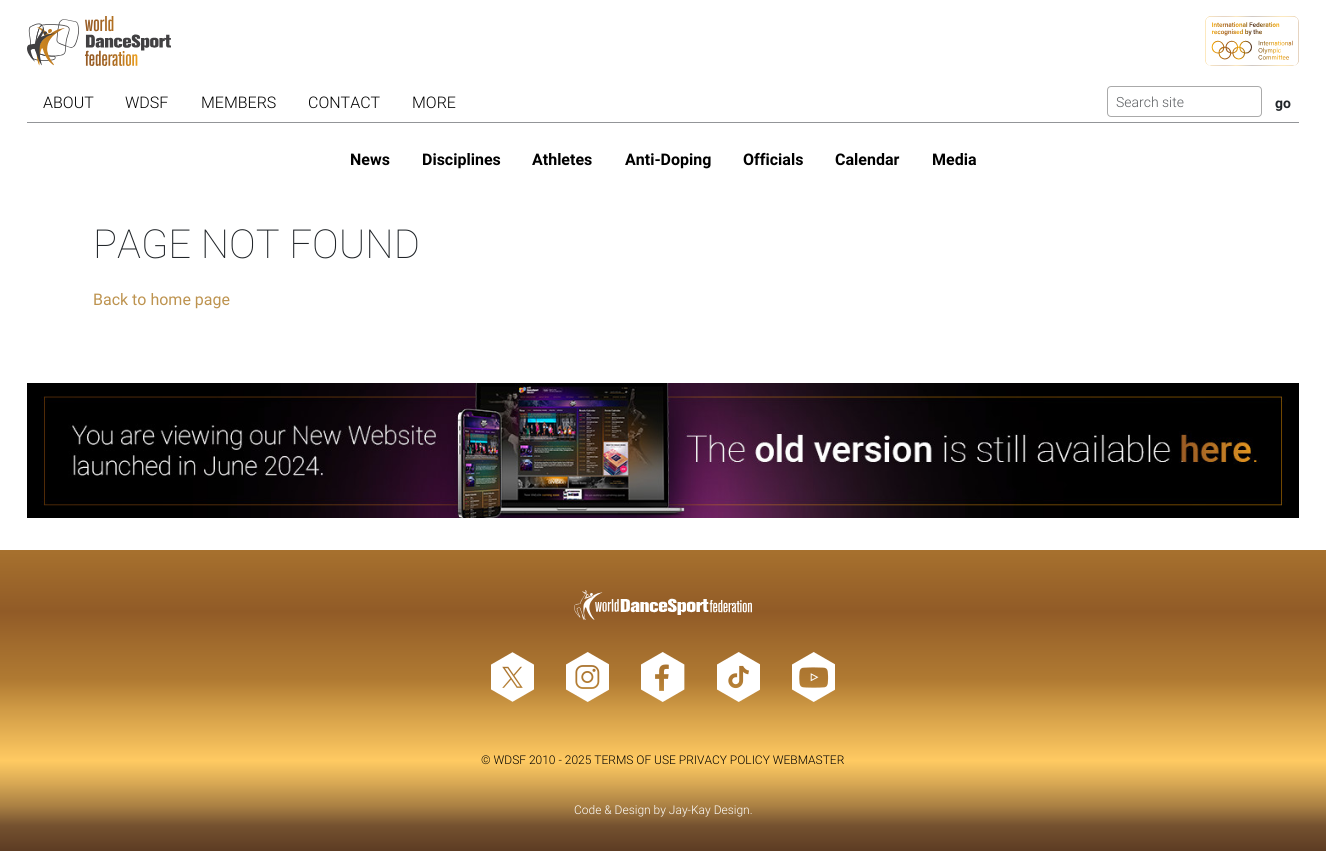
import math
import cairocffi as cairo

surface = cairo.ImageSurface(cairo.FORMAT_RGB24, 1326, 851)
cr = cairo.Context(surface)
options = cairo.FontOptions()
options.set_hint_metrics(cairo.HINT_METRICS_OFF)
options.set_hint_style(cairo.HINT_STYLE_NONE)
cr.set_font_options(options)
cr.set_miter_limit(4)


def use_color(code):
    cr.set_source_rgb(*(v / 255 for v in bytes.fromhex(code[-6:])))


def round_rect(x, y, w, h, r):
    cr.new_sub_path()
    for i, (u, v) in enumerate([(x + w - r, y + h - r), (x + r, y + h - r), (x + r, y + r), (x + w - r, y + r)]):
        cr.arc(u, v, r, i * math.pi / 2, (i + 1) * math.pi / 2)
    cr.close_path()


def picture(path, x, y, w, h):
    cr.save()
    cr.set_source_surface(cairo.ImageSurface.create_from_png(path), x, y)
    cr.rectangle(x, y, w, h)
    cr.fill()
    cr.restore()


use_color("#ffffff")
cr.paint()
picture("img1.png", 27, 16, 144, 50)
picture("img2.png", 1205, 16, 94, 50)
use_color("#939598")
cr.rectangle(27, 122, 1272, 1)
cr.fill()
cr.select_font_face("Roboto Light")
cr.set_font_size(16)
use_color("#000000")
cr.move_to(43, 108)
cr.show_text("ABOUT")
cr.move_to(125, 108)
cr.show_text("WDSF")
cr.move_to(201, 108)
cr.show_text("MEMBERS")
cr.move_to(308, 108)
cr.show_text("CONTACT")
cr.move_to(412, 108)
cr.show_text("MORE")
round_rect(1107.5, 86.5, 154, 30, 3.5)
use_color("#aaaaaa")
cr.set_line_width(1)
cr.stroke()
cr.set_font_size(14)
use_color("#595c5f")
cr.move_to(1116, 107)
cr.show_text("Search site")
cr.select_font_face("Roboto", cairo.FONT_SLANT_NORMAL, cairo.FONT_WEIGHT_BOLD)
use_color("#212529")
cr.move_to(1275, 108)
cr.show_text("go")
cr.set_font_size(16)
use_color("#000000")
cr.move_to(350, 165)
cr.show_text("News")
cr.move_to(422, 165)
cr.show_text("Disciplines")
cr.move_to(532, 165)
cr.show_text("Athletes")
cr.move_to(625, 165)
cr.show_text("Anti-Doping")
cr.move_to(743, 165)
cr.show_text("Officials")
cr.move_to(835, 165)
cr.show_text("Calendar")
cr.move_to(932, 165)
cr.show_text("Media")
cr.select_font_face("Roboto Thin")
cr.set_font_size(40)
use_color("#212529")
cr.move_to(93, 258)
cr.show_text("PAGE NOT FOUND")
cr.select_font_face("Roboto")
cr.set_font_size(16)
use_color("#bd934f")
cr.move_to(93, 305)
cr.show_text("Back to home page")
picture("img3.png", 27, 383, 1272, 135)
gradient = cairo.LinearGradient(663, 550, 663, 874)
gradient.add_color_stop_rgba(0, 0.655, 0.443, 0.18, 1)
gradient.add_color_stop_rgba(0.19, 0.569, 0.357, 0.153, 1)
gradient.add_color_stop_rgba(0.29, 0.631, 0.42, 0.176, 1)
gradient.add_color_stop_rgba(0.4, 0.69, 0.478, 0.196, 1)
gradient.add_color_stop_rgba(0.49, 0.812, 0.604, 0.271, 1)
gradient.add_color_stop_rgba(0.65, 1, 0.792, 0.384, 1)
gradient.add_color_stop_rgba(0.67, 0.957, 0.757, 0.369, 1)
gradient.add_color_stop_rgba(0.72, 0.847, 0.659, 0.329, 1)
gradient.add_color_stop_rgba(0.79, 0.667, 0.502, 0.263, 1)
gradient.add_color_stop_rgba(0.85, 0.459, 0.322, 0.188, 1)
gradient.add_color_stop_rgba(0.86, 0.447, 0.31, 0.18, 1)
gradient.add_color_stop_rgba(1, 0.278, 0.157, 0.094, 1)
cr.set_source(gradient)
cr.rectangle(0, 550, 1326, 301)
cr.fill()
picture("img4.png", 574, 590, 178, 30)
picture("img5.png", 491, 652, 43, 50)
picture("img6.png", 566, 652, 43, 50)
picture("img7.png", 641, 652, 44, 50)
picture("img8.png", 717, 652, 43, 50)
picture("img9.png", 792, 652, 43, 50)
cr.select_font_face("Roboto Light")
cr.set_font_size(12)
use_color("#000000")
cr.move_to(481, 764)
cr.show_text("© WDSF 2010 - 2025 TERMS OF USE PRIVACY POLICY WEBMASTER")
use_color("#ffffff")
cr.move_to(574, 814)
cr.show_text("Code & Design by Jay-Kay Design.")
surface.write_to_png("result.png")
